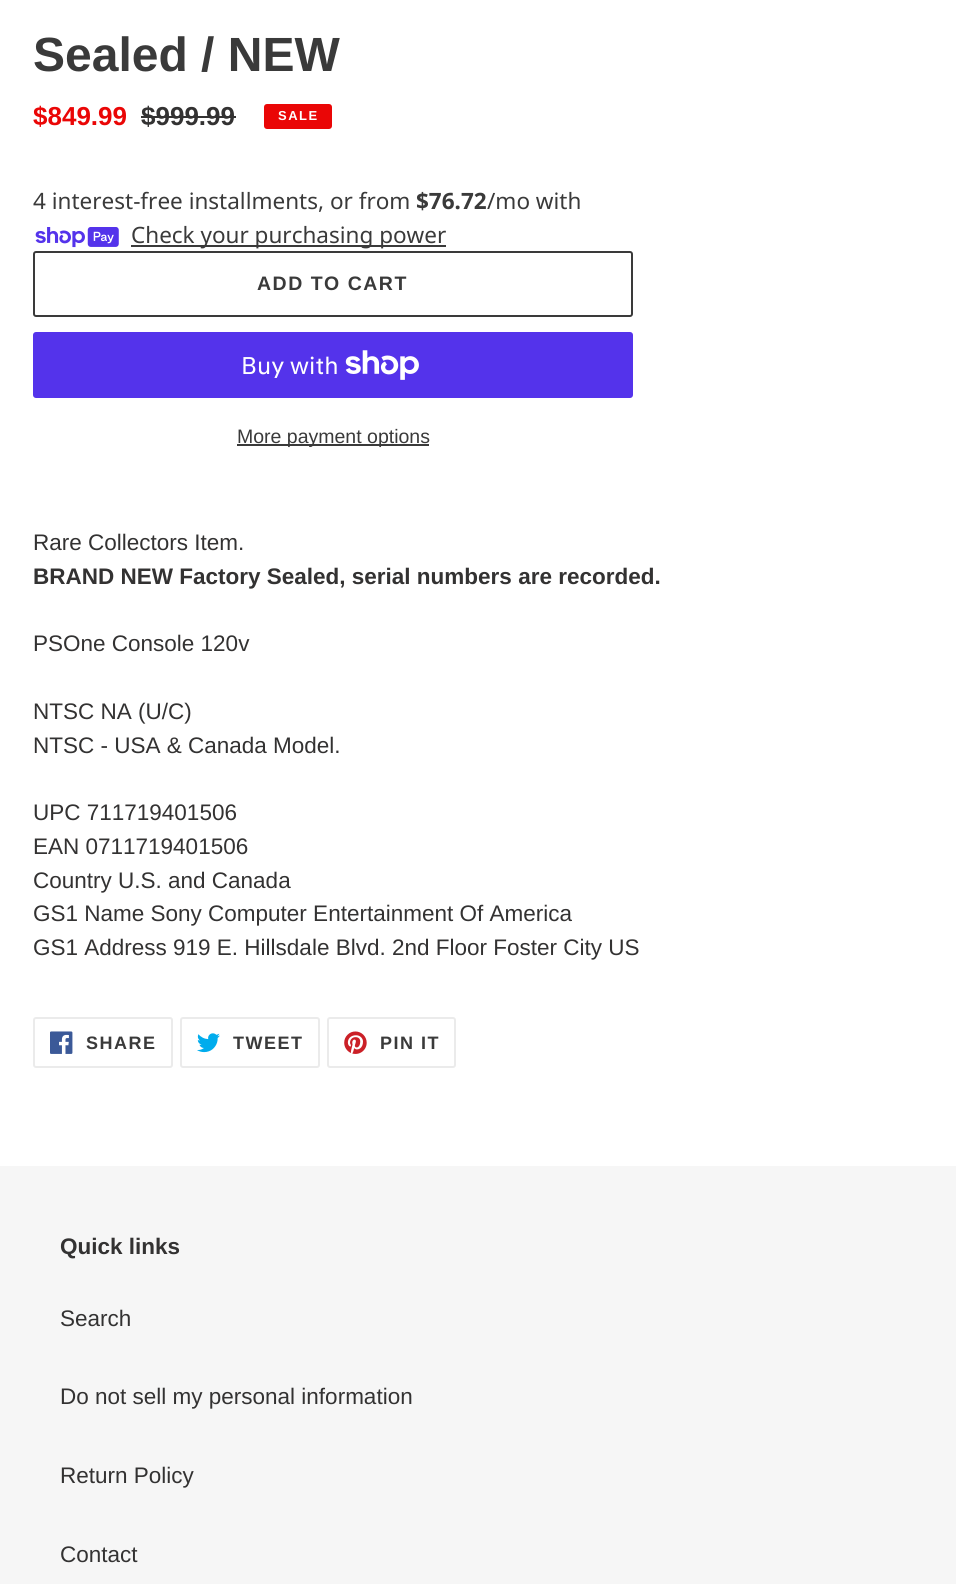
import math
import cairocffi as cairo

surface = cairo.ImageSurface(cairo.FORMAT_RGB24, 956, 1584)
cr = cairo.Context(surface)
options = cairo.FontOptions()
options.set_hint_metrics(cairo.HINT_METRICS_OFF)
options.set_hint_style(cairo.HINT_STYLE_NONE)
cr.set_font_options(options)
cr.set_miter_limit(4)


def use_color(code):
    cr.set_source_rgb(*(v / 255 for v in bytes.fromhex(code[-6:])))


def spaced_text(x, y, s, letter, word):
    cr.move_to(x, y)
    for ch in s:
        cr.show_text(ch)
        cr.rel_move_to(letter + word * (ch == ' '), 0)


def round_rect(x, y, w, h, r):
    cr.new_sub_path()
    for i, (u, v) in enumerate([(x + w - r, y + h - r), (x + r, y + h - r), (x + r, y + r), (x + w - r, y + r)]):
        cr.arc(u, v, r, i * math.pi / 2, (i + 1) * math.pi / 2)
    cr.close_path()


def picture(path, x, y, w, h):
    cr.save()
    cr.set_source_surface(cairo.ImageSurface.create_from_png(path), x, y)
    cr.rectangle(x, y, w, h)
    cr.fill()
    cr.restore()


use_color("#ffffff")
cr.paint()
cr.select_font_face("Liberation Sans", cairo.FONT_SLANT_NORMAL, cairo.FONT_WEIGHT_BOLD)
cr.set_font_size(48)
use_color("#3a3a3a")
cr.move_to(33, 71)
cr.show_text("Sealed / NEW")
cr.set_font_size(26)
use_color("#ea0606")
cr.move_to(33, 125)
cr.show_text("$849.99")
use_color("#333232")
cr.move_to(141, 125)
cr.show_text("$999.99")
cr.rectangle(141, 116, 95, 2)
cr.fill()
use_color("#ea0606")
round_rect(265, 105, 66, 23, 2)
cr.fill_preserve()
cr.stroke()
cr.set_font_size(13)
use_color("#ffffff")
spaced_text(278, 120, "SALE", 1.5, 0)
cr.select_font_face("Noto Sans")
cr.set_font_size(22.5)
use_color("#3a3a3a")
cr.move_to(33, 209)
cr.show_text("4 interest-free installments, or from")
cr.select_font_face("Noto Sans", cairo.FONT_SLANT_NORMAL, cairo.FONT_WEIGHT_BOLD)
cr.move_to(416, 209)
cr.show_text("$76.72")
cr.select_font_face("Noto Sans")
cr.move_to(487, 209)
cr.show_text("/mo with")
picture("img1.png", 35, 227, 84, 21)
cr.rectangle(131, 245, 315, 2)
cr.fill()
cr.move_to(131, 243)
cr.show_text("Check your purchasing power")
round_rect(34, 252, 598, 64, 2)
cr.stroke()
cr.select_font_face("Liberation Sans", cairo.FONT_SLANT_NORMAL, cairo.FONT_WEIGHT_BOLD)
cr.set_font_size(19.5)
spaced_text(257, 290, "ADD TO CART", 1.5, 0)
use_color("#5433eb")
round_rect(33, 332, 600, 66, 3)
cr.fill()
cr.select_font_face("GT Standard")
cr.set_font_size(24)
use_color("#ffffff")
cr.move_to(241, 374)
cr.show_text("Buy with")
picture("img2.png", 345, 350, 74, 30)
use_color("#3a3a3a")
cr.rectangle(237, 444, 192, 2)
cr.fill()
cr.select_font_face("Liberation Sans")
cr.set_font_size(19.5)
cr.move_to(237, 443)
cr.show_text("More payment options")
cr.set_font_size(22.5)
use_color("#333232")
cr.move_to(33, 550)
cr.show_text("Rare Collectors Item.")
cr.select_font_face("Liberation Sans", cairo.FONT_SLANT_NORMAL, cairo.FONT_WEIGHT_BOLD)
cr.move_to(33, 584)
cr.show_text("BRAND NEW Factory Sealed, serial numbers are recorded.")
cr.select_font_face("Liberation Sans")
cr.move_to(33, 651)
cr.show_text("PSOne Console 120v")
cr.move_to(33, 719)
cr.show_text("NTSC NA (U/C)")
cr.move_to(33, 753)
cr.show_text("NTSC - USA & Canada Model.")
cr.move_to(33, 820)
cr.show_text("UPC 711719401506")
cr.move_to(33, 854)
cr.show_text("EAN 0711719401506")
cr.move_to(33, 888)
cr.show_text("Country U.S. and Canada")
cr.move_to(33, 921)
cr.show_text("GS1 Name Sony Computer Entertainment Of America")
cr.move_to(33, 955)
cr.show_text("GS1 Address 919 E. Hillsdale Blvd. 2nd Floor Foster City US")
round_rect(34, 1018, 138, 49, 2)
use_color("#ebebeb")
cr.stroke()
picture("img3.png", 50, 1031, 23, 23)
cr.select_font_face("Liberation Sans", cairo.FONT_SLANT_NORMAL, cairo.FONT_WEIGHT_BOLD)
cr.set_font_size(18)
use_color("#3a3a3a")
spaced_text(86, 1049, "SHARE", 1.5, 0)
round_rect(181, 1018, 138, 49, 2)
use_color("#ebebeb")
cr.stroke()
picture("img4.png", 197, 1033, 23, 20)
use_color("#3a3a3a")
spaced_text(233, 1049, "TWEET", 1.5, 0)
round_rect(328, 1018, 127, 49, 2)
use_color("#ebebeb")
cr.stroke()
picture("img5.png", 344, 1031, 23, 23)
use_color("#3a3a3a")
spaced_text(380, 1049, "PIN IT", 1.5, 0)
use_color("#f6f6f6")
cr.rectangle(0, 1166, 956, 418)
cr.fill()
cr.set_font_size(22.5)
use_color("#333232")
cr.move_to(60, 1254)
cr.show_text("Quick links")
cr.select_font_face("Liberation Sans")
cr.move_to(60, 1326)
cr.show_text("Search")
cr.move_to(60, 1404)
cr.show_text("Do not sell my personal information")
cr.move_to(60, 1483)
cr.show_text("Return Policy")
cr.move_to(60, 1562)
cr.show_text("Contact")
surface.write_to_png("result.png")
